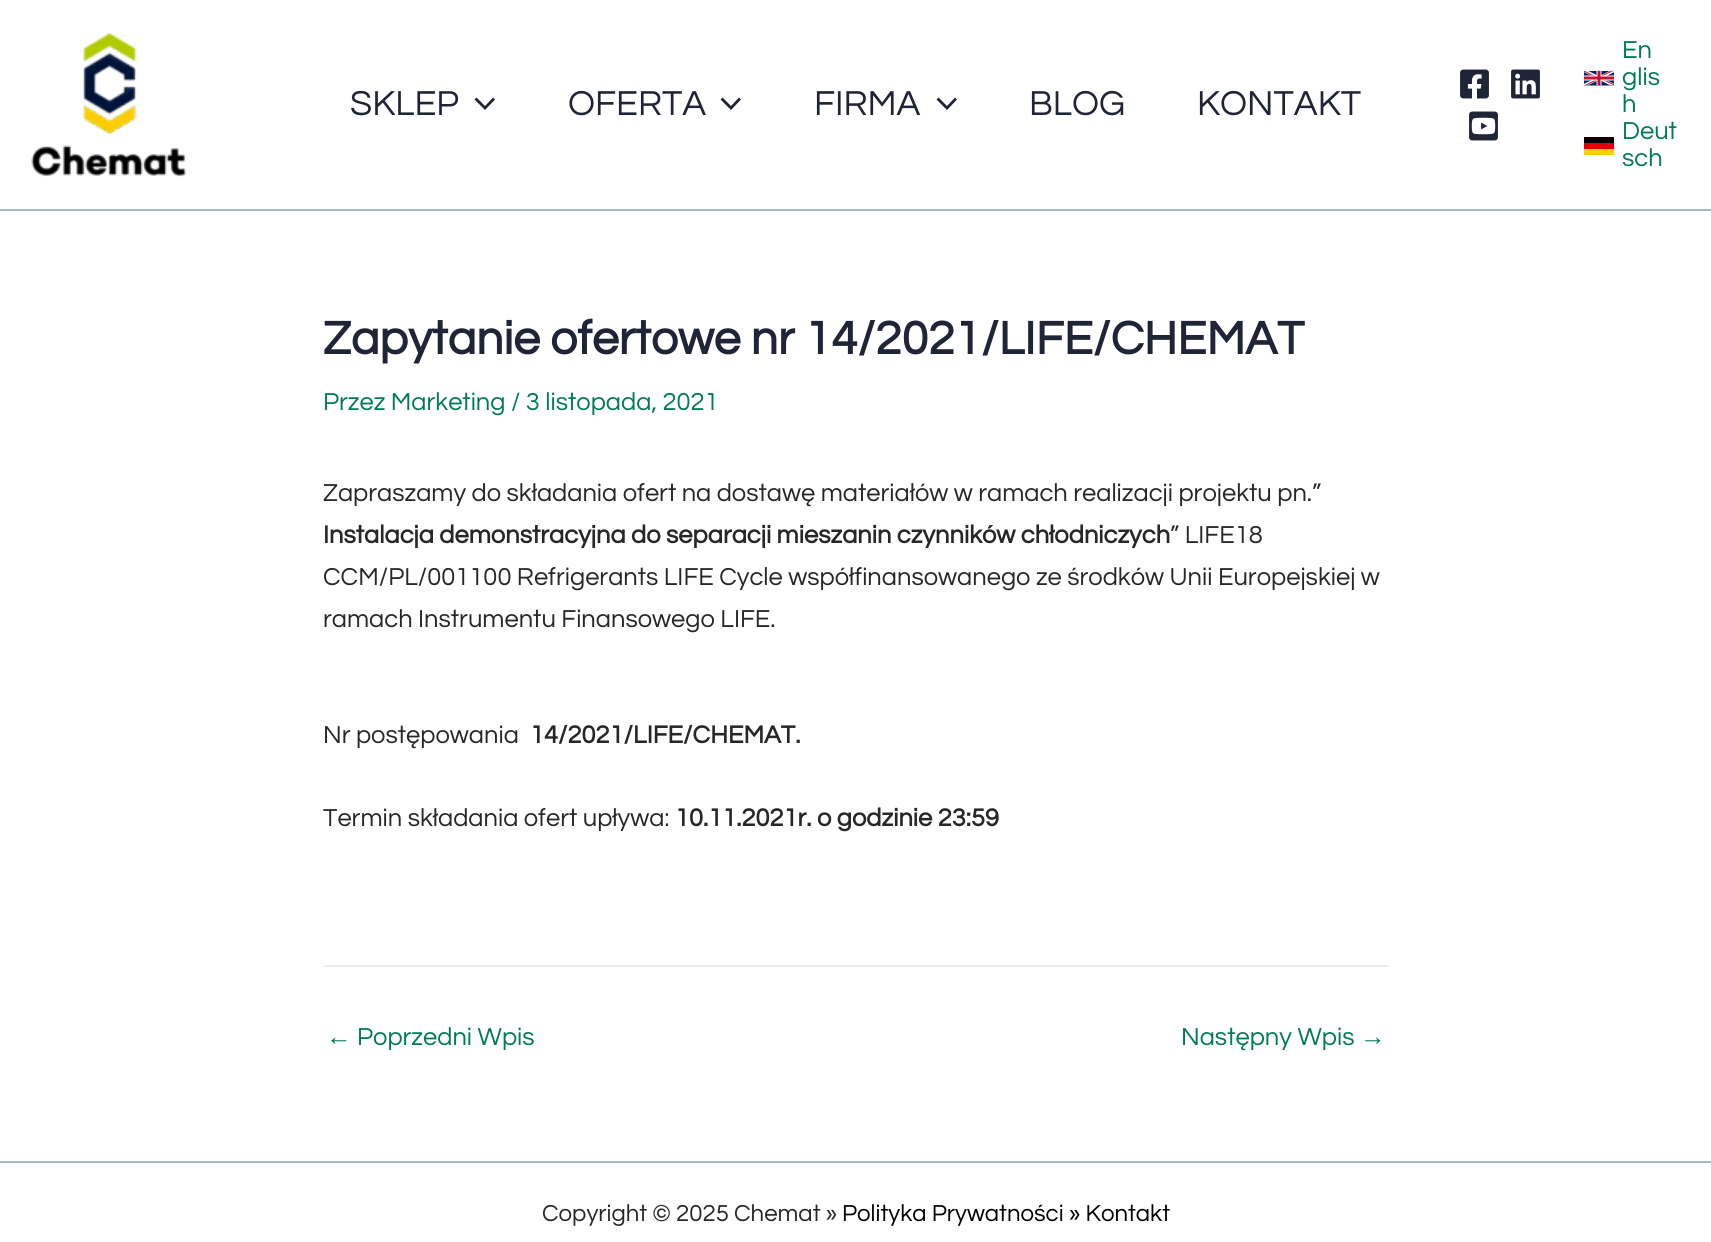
import math
import cairocffi as cairo

surface = cairo.ImageSurface(cairo.FORMAT_RGB24, 1711, 1242)
cr = cairo.Context(surface)
options = cairo.FontOptions()
options.set_hint_metrics(cairo.HINT_METRICS_OFF)
options.set_hint_style(cairo.HINT_STYLE_NONE)
cr.set_font_options(options)
cr.set_miter_limit(4)


def use_color(code):
    cr.set_source_rgb(*(v / 255 for v in bytes.fromhex(code[-6:])))


def picture(path, x, y, w, h):
    cr.save()
    cr.set_source_surface(cairo.ImageSurface.create_from_png(path), x, y)
    cr.rectangle(x, y, w, h)
    cr.fill()
    cr.restore()


use_color("#ffffff")
cr.paint()
use_color("#adb6be")
cr.rectangle(0, 209, 1711, 2)
cr.fill()
picture("img1.png", 31, 32, 156, 145)
cr.select_font_face("Questrial")
cr.set_font_size(36)
use_color("#1f2436")
cr.move_to(350, 115)
cr.show_text("SKLEP")
cr.new_path()
cr.move_to(474.5, 99.5)
cr.line_to(485, 110)
cr.line_to(495, 99.5)
cr.line_to(493, 97.5)
cr.line_to(485, 106)
cr.line_to(476.5, 97.5)
cr.close_path()
cr.fill()
cr.move_to(568, 115)
cr.show_text("OFERTA")
cr.new_path()
cr.move_to(720.5, 99.5)
cr.line_to(731, 110)
cr.line_to(741, 99.5)
cr.line_to(739, 97.5)
cr.line_to(731, 106)
cr.line_to(722.5, 97.5)
cr.close_path()
cr.fill()
cr.move_to(814, 115)
cr.show_text("FIRMA")
cr.new_path()
cr.move_to(936.5, 99.5)
cr.line_to(947, 110)
cr.line_to(957, 99.5)
cr.line_to(955, 97.5)
cr.line_to(947, 106)
cr.line_to(938.5, 97.5)
cr.close_path()
cr.fill()
cr.move_to(1029, 115)
cr.show_text("BLOG")
cr.move_to(1197, 115)
cr.show_text("KONTAKT")
picture("img2.png", 1460, 69, 29, 30)
picture("img3.png", 1511, 69, 29, 30)
picture("img4.png", 1469, 111, 29, 30)
picture("img5.png", 1584, 70, 30, 16)
cr.set_font_size(25.5)
use_color("#007b55")
cr.move_to(1622, 58)
cr.show_text("En")
cr.move_to(1622, 85)
cr.show_text("glis")
cr.move_to(1622, 112)
cr.show_text("h")
use_color("#000000")
cr.rectangle(1584, 137, 30, 6)
cr.fill()
use_color("#dd0000")
cr.rectangle(1584, 143, 30, 6)
cr.fill()
use_color("#ffce00")
cr.rectangle(1584, 149, 30, 6)
cr.fill()
use_color("#007b55")
cr.move_to(1622, 139)
cr.show_text("Deut")
cr.move_to(1622, 166)
cr.show_text("sch")
cr.select_font_face("Questrial", cairo.FONT_SLANT_NORMAL, cairo.FONT_WEIGHT_BOLD)
cr.set_font_size(48)
use_color("#1f2436")
cr.move_to(323, 354)
cr.show_text("Zapytanie ofertowe nr 14/2021/LIFE/CHEMAT")
cr.select_font_face("Questrial")
cr.set_font_size(25.5)
use_color("#007b55")
cr.move_to(323, 410)
cr.show_text("Przez Marketing / 3 listopada, 2021")
use_color("#282628")
cr.move_to(323, 501)
cr.show_text("Zapraszamy do składania ofert na dostawę materiałów w ramach realizacji projektu pn.”")
cr.select_font_face("Questrial", cairo.FONT_SLANT_NORMAL, cairo.FONT_WEIGHT_BOLD)
cr.move_to(323, 543)
cr.show_text("Instalacja demonstracyjna do separacji mieszanin czynników chłodniczych")
cr.select_font_face("Questrial")
cr.move_to(1170, 543)
cr.show_text("” LIFE18")
cr.move_to(323, 585)
cr.show_text("CCM/PL/001100 Refrigerants LIFE Cycle współfinansowanego ze środków Unii Europejskiej w")
cr.move_to(323, 627)
cr.show_text("ramach Instrumentu Finansowego LIFE.")
cr.move_to(323, 743)
cr.show_text("Nr postępowania")
cr.select_font_face("Questrial", cairo.FONT_SLANT_NORMAL, cairo.FONT_WEIGHT_BOLD)
cr.move_to(530, 743)
cr.show_text("14/2021/LIFE/CHEMAT.")
cr.select_font_face("Questrial")
cr.move_to(323, 826)
cr.show_text("Termin składania ofert upływa:")
cr.select_font_face("Questrial", cairo.FONT_SLANT_NORMAL, cairo.FONT_WEIGHT_BOLD)
cr.move_to(675, 826)
cr.show_text("10.11.2021r. o godzinie 23:59")
use_color("#ededed")
cr.rectangle(324, 965, 1065, 2)
cr.fill()
cr.select_font_face("Liberation Sans")
use_color("#007b55")
cr.move_to(326, 1045)
cr.show_text("←")
cr.select_font_face("Questrial")
cr.move_to(357, 1045)
cr.show_text("Poprzedni Wpis")
cr.move_to(1181, 1045)
cr.show_text("Następny Wpis")
cr.select_font_face("Liberation Sans")
cr.move_to(1360, 1045)
cr.show_text("→")
use_color("#adb6be")
cr.rectangle(0, 1161, 1711, 2)
cr.fill()
cr.select_font_face("Questrial")
cr.set_font_size(24)
use_color("#282628")
cr.move_to(542, 1221)
cr.show_text("Copyright © 2025 Chemat »")
use_color("#000000")
cr.move_to(842, 1221)
cr.show_text("Polityka Prywatności » Kontakt")
surface.write_to_png("result.png")
